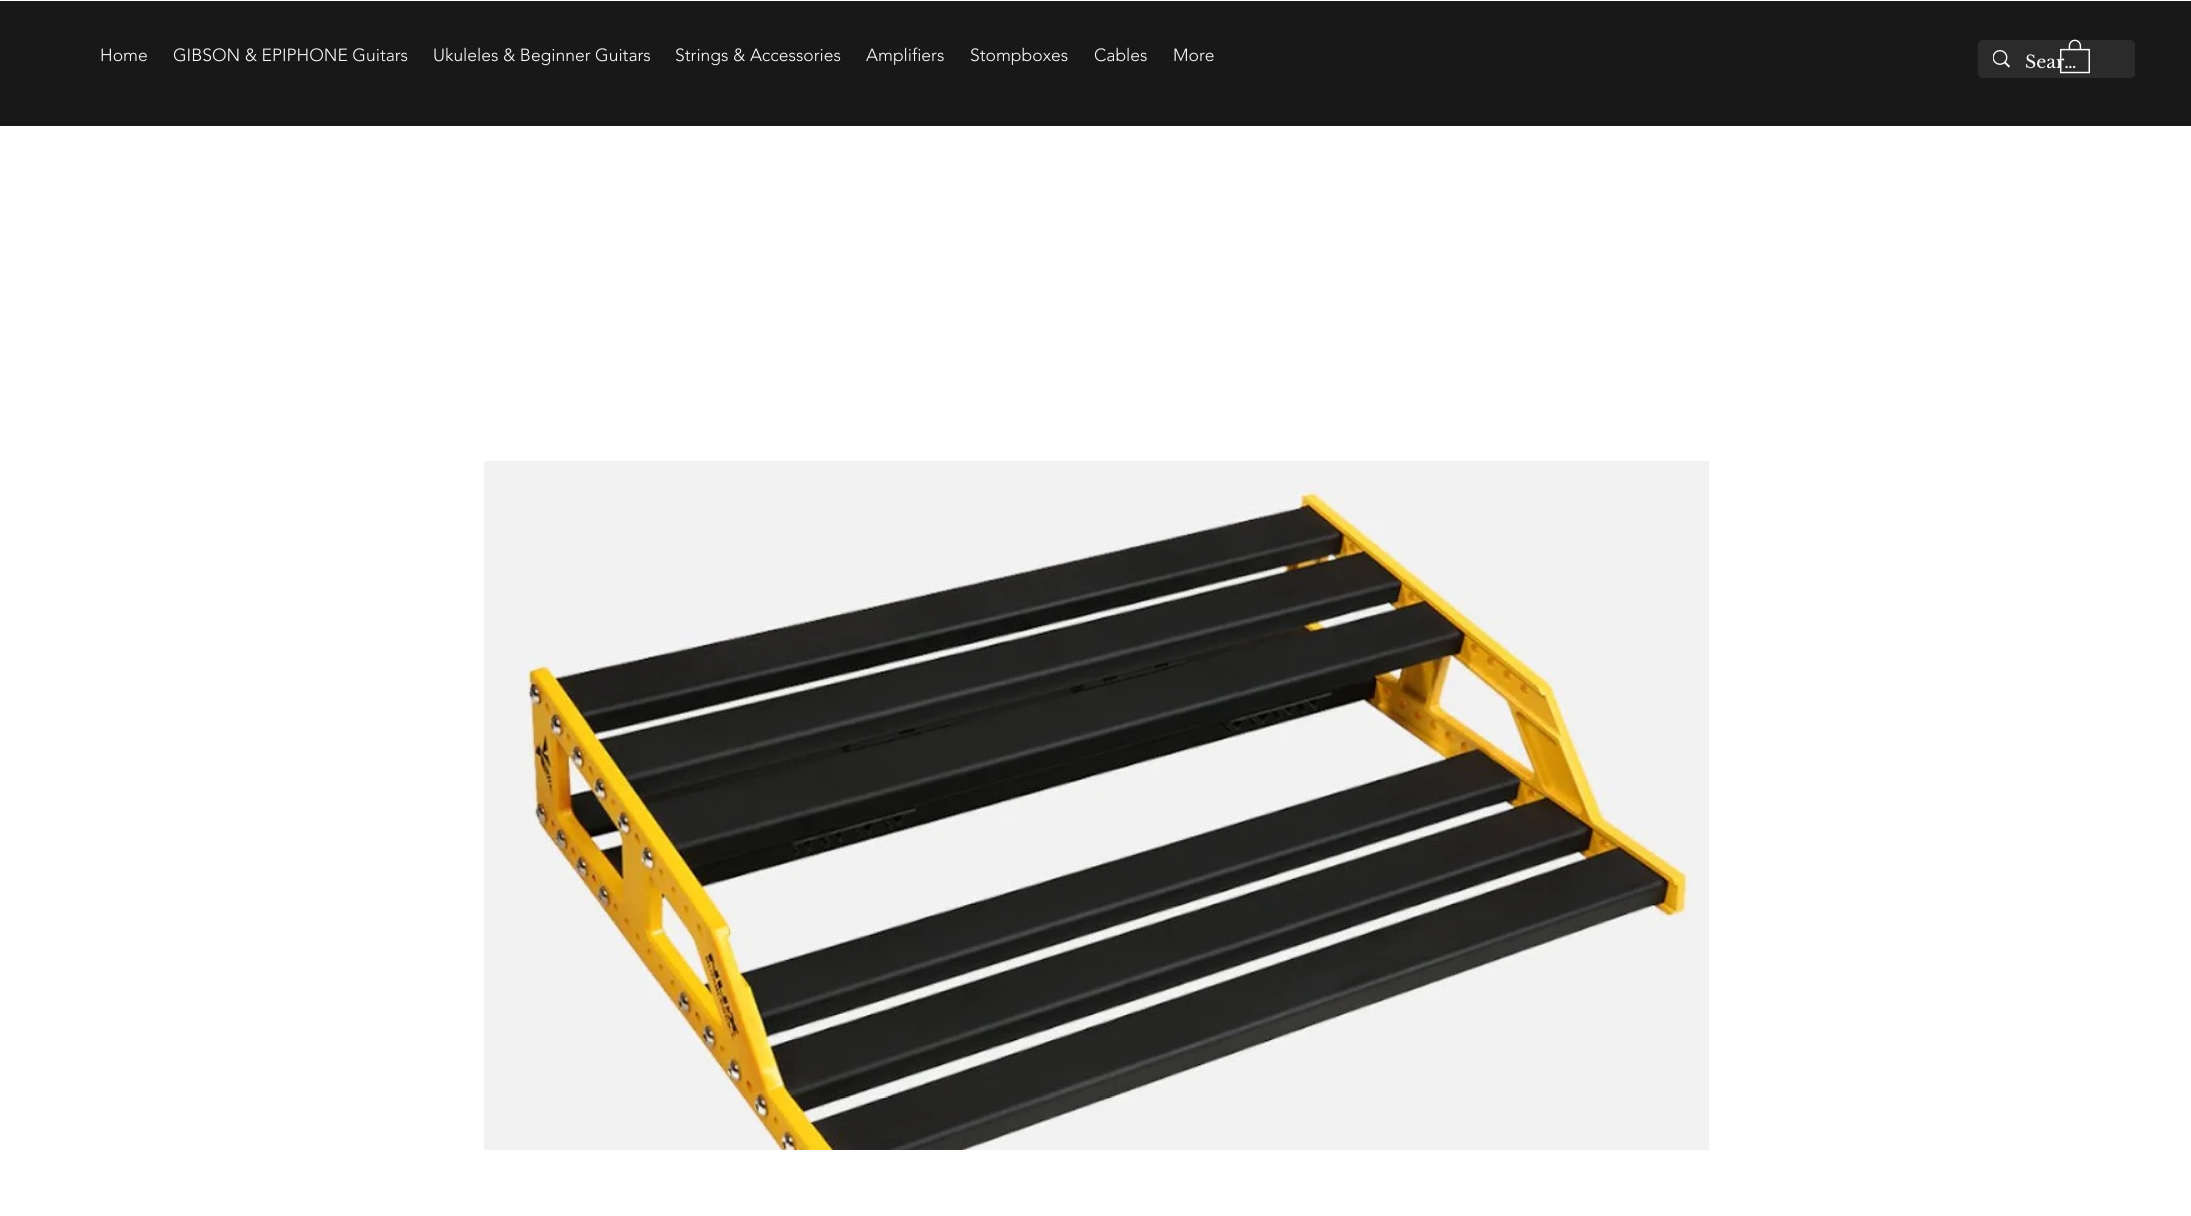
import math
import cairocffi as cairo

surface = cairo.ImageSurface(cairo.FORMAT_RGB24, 2191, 1216)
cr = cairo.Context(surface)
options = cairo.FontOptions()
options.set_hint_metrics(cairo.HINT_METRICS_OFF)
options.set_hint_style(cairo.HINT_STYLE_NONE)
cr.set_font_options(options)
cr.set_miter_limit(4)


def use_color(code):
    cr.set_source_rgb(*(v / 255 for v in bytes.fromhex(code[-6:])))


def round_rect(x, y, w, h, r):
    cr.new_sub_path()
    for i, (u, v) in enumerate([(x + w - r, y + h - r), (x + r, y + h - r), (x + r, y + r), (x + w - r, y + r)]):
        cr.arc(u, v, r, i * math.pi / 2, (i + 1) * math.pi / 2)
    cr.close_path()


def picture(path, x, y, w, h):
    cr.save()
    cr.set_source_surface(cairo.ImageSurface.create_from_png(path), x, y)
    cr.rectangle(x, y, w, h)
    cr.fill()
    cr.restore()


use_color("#ffffff")
cr.paint()
use_color("#181818")
cr.rectangle(0, 1, 2191, 125)
cr.fill()
picture("img1.png", 484, 461, 1225, 689)
use_color("#2b2b2b")
round_rect(1978, 40, 157, 38, 5)
cr.fill()
cr.select_font_face("Libre Baskerville")
cr.set_font_size(17.5)
use_color("#ffffff")
cr.move_to(2025, 68)
cr.show_text("Sear…")
picture("img2.png", 2060, 39, 30, 35)
cr.select_font_face("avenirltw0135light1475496 Light")
cr.move_to(100, 61)
cr.show_text("Home")
cr.move_to(173, 61)
cr.show_text("GIBSON & EPIPHONE Guitars")
cr.move_to(433, 61)
cr.show_text("Ukuleles & Beginner Guitars")
cr.move_to(675, 61)
cr.show_text("Strings & Accessories")
cr.move_to(866, 61)
cr.show_text("Amplifiers")
cr.move_to(970, 61)
cr.show_text("Stompboxes")
cr.move_to(1094, 61)
cr.show_text("Cables")
cr.move_to(1173, 61)
cr.show_text("More")
picture("img3.png", 1993, 50, 17, 18)
surface.write_to_png("result.png")
